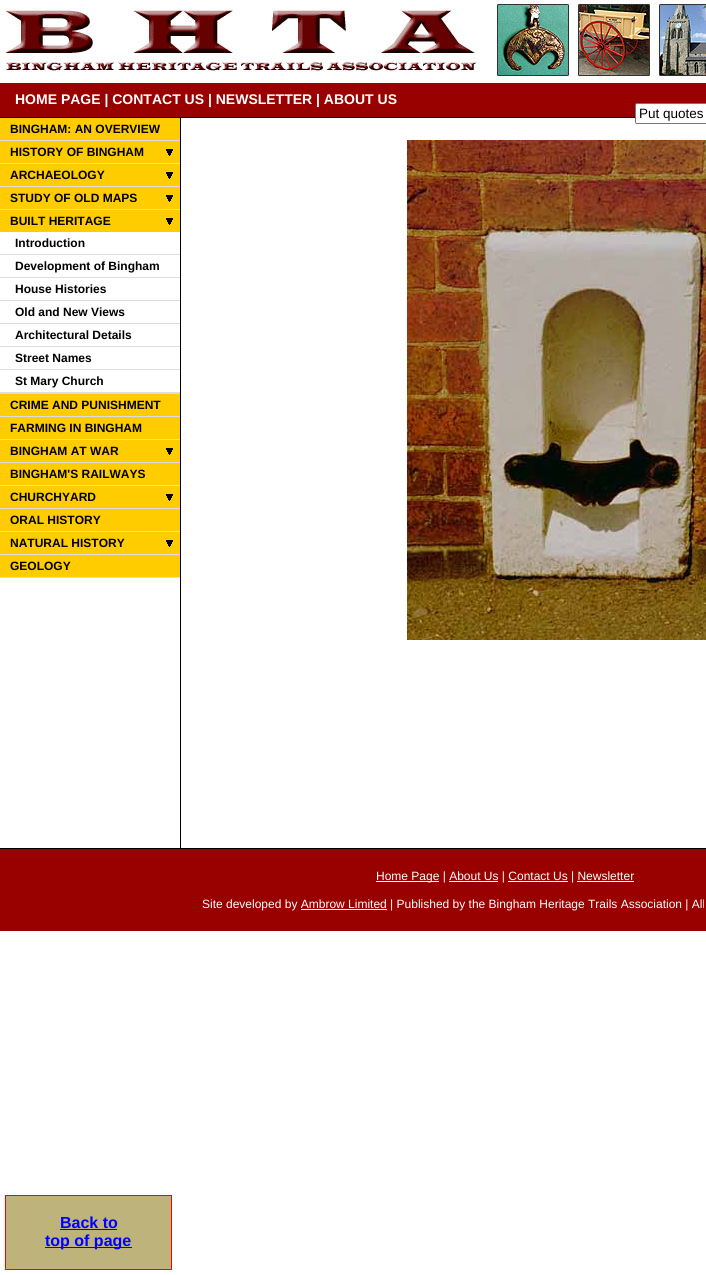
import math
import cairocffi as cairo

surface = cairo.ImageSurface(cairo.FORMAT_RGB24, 706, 1275)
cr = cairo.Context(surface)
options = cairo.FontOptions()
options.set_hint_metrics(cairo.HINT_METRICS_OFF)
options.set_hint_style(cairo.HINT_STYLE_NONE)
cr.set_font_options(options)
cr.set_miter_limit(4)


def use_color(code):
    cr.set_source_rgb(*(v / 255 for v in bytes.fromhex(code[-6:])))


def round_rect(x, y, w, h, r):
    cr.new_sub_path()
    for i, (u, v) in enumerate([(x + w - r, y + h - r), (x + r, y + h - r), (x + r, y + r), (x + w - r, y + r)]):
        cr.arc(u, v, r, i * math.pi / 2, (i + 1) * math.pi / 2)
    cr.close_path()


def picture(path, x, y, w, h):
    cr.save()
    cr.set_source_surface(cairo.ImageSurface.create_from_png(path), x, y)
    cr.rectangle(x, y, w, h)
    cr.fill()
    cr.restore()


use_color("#ffffff")
cr.paint()
picture("img1.png", 0, 0, 706, 80)
use_color("#990000")
cr.rectangle(0, 83, 706, 34)
cr.fill()
use_color("#000000")
cr.rectangle(0, 117, 635, 1)
cr.fill()
cr.select_font_face("Liberation Sans", cairo.FONT_SLANT_NORMAL, cairo.FONT_WEIGHT_BOLD)
cr.set_font_size(14)
use_color("#ffffff")
cr.move_to(15, 104)
cr.show_text("HOME PAGE | CONTACT US | NEWSLETTER | ABOUT US")
round_rect(635.5, 103.5, 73, 20, 1.5)
cr.fill_preserve()
use_color("#767676")
cr.set_line_width(1)
cr.stroke()
cr.select_font_face("Liberation Sans")
cr.set_font_size(13.5)
use_color("#000000")
cr.move_to(639, 118)
cr.show_text("Put quotes")
use_color("#dddddd")
cr.rectangle(0, 140, 180, 1)
cr.fill()
use_color("#ffcc00")
cr.rectangle(0, 118, 180, 22)
cr.fill()
cr.select_font_face("Liberation Sans", cairo.FONT_SLANT_NORMAL, cairo.FONT_WEIGHT_BOLD)
cr.set_font_size(12)
use_color("#000000")
cr.move_to(10, 133)
cr.show_text("BINGHAM: AN OVERVIEW")
use_color("#dddddd")
cr.rectangle(0, 163, 180, 1)
cr.fill()
use_color("#ffcc00")
cr.rectangle(0, 141, 180, 22)
cr.fill()
picture("img2.png", 166, 149, 7, 7)
use_color("#000000")
cr.move_to(10, 156)
cr.show_text("HISTORY OF BINGHAM")
use_color("#dddddd")
cr.rectangle(0, 186, 180, 1)
cr.fill()
use_color("#ffcc00")
cr.rectangle(0, 164, 180, 22)
cr.fill()
picture("img2.png", 166, 172, 7, 7)
use_color("#000000")
cr.move_to(10, 179)
cr.show_text("ARCHAEOLOGY")
use_color("#dddddd")
cr.rectangle(0, 209, 180, 1)
cr.fill()
use_color("#ffcc00")
cr.rectangle(0, 187, 180, 22)
cr.fill()
picture("img2.png", 166, 195, 7, 7)
use_color("#000000")
cr.move_to(10, 202)
cr.show_text("STUDY OF OLD MAPS")
use_color("#dddddd")
cr.rectangle(0, 392, 180, 2)
cr.fill()
use_color("#ffcc00")
cr.rectangle(0, 210, 180, 22)
cr.fill()
picture("img2.png", 166, 218, 7, 7)
use_color("#000000")
cr.move_to(10, 225)
cr.show_text("BUILT HERITAGE")
use_color("#dddddd")
cr.rectangle(0, 254, 180, 1)
cr.fill()
use_color("#000000")
cr.move_to(15, 247)
cr.show_text("Introduction")
use_color("#dddddd")
cr.rectangle(0, 277, 180, 1)
cr.fill()
use_color("#000000")
cr.move_to(15, 270)
cr.show_text("Development of Bingham")
use_color("#dddddd")
cr.rectangle(0, 300, 180, 1)
cr.fill()
use_color("#000000")
cr.move_to(15, 293)
cr.show_text("House Histories")
use_color("#dddddd")
cr.rectangle(0, 323, 180, 1)
cr.fill()
use_color("#000000")
cr.move_to(15, 316)
cr.show_text("Old and New Views")
use_color("#dddddd")
cr.rectangle(0, 346, 180, 1)
cr.fill()
use_color("#000000")
cr.move_to(15, 339)
cr.show_text("Architectural Details")
use_color("#dddddd")
cr.rectangle(0, 369, 180, 1)
cr.fill()
use_color("#000000")
cr.move_to(15, 362)
cr.show_text("Street Names")
cr.move_to(15, 385)
cr.show_text("St Mary Church")
use_color("#dddddd")
cr.rectangle(0, 416, 180, 1)
cr.fill()
use_color("#ffcc00")
cr.rectangle(0, 394, 180, 22)
cr.fill()
use_color("#000000")
cr.move_to(10, 409)
cr.show_text("CRIME AND PUNISHMENT")
use_color("#dddddd")
cr.rectangle(0, 439, 180, 1)
cr.fill()
use_color("#ffcc00")
cr.rectangle(0, 417, 180, 22)
cr.fill()
use_color("#000000")
cr.move_to(10, 432)
cr.show_text("FARMING IN BINGHAM")
use_color("#dddddd")
cr.rectangle(0, 462, 180, 1)
cr.fill()
use_color("#ffcc00")
cr.rectangle(0, 440, 180, 22)
cr.fill()
picture("img2.png", 166, 448, 7, 7)
use_color("#000000")
cr.move_to(10, 455)
cr.show_text("BINGHAM AT WAR")
use_color("#dddddd")
cr.rectangle(0, 485, 180, 1)
cr.fill()
use_color("#ffcc00")
cr.rectangle(0, 463, 180, 22)
cr.fill()
use_color("#000000")
cr.move_to(10, 478)
cr.show_text("BINGHAM'S RAILWAYS")
use_color("#dddddd")
cr.rectangle(0, 508, 180, 1)
cr.fill()
use_color("#ffcc00")
cr.rectangle(0, 486, 180, 22)
cr.fill()
picture("img2.png", 166, 494, 7, 7)
use_color("#000000")
cr.move_to(10, 501)
cr.show_text("CHURCHYARD")
use_color("#dddddd")
cr.rectangle(0, 531, 180, 1)
cr.fill()
use_color("#ffcc00")
cr.rectangle(0, 509, 180, 22)
cr.fill()
use_color("#000000")
cr.move_to(10, 524)
cr.show_text("ORAL HISTORY")
use_color("#dddddd")
cr.rectangle(0, 554, 180, 1)
cr.fill()
use_color("#ffcc00")
cr.rectangle(0, 532, 180, 22)
cr.fill()
picture("img2.png", 166, 540, 7, 7)
use_color("#000000")
cr.move_to(10, 547)
cr.show_text("NATURAL HISTORY")
use_color("#dddddd")
cr.rectangle(0, 577, 180, 1)
cr.fill()
use_color("#ffcc00")
cr.rectangle(0, 555, 180, 22)
cr.fill()
use_color("#000000")
cr.move_to(10, 570)
cr.show_text("GEOLOGY")
cr.rectangle(180, 118, 1, 730)
cr.fill()
picture("img3.png", 407, 140, 299, 500)
use_color("#990000")
cr.rectangle(0, 849, 706, 82)
cr.fill()
use_color("#000000")
cr.rectangle(0, 848, 706, 1)
cr.fill()
use_color("#ffffff")
cr.rectangle(376, 881, 63, 1)
cr.fill()
cr.select_font_face("Liberation Sans")
cr.move_to(376, 880)
cr.show_text("Home Page | About Us | Contact Us | Newsletter")
cr.rectangle(449, 881, 49, 1)
cr.fill()
cr.rectangle(508, 881, 60, 1)
cr.fill()
cr.rectangle(577, 881, 57, 1)
cr.fill()
cr.move_to(202, 908)
cr.show_text("Site developed by Ambrow Limited | Published by the Bingham Heritage Trails Association | All")
cr.rectangle(301, 909, 86, 1)
cr.fill()
use_color("#beb37b")
cr.rectangle(5.5, 1195.5, 166, 74)
cr.fill_preserve()
use_color("#ff0000")
cr.stroke()
cr.select_font_face("Liberation Sans", cairo.FONT_SLANT_NORMAL, cairo.FONT_WEIGHT_BOLD)
cr.set_font_size(16)
use_color("#0000ff")
cr.move_to(60, 1228)
cr.show_text("Back to")
cr.rectangle(60, 1229, 57, 1)
cr.fill()
cr.rectangle(45, 1247, 87, 1)
cr.fill()
cr.move_to(45, 1246)
cr.show_text("top of page")
surface.write_to_png("result.png")
